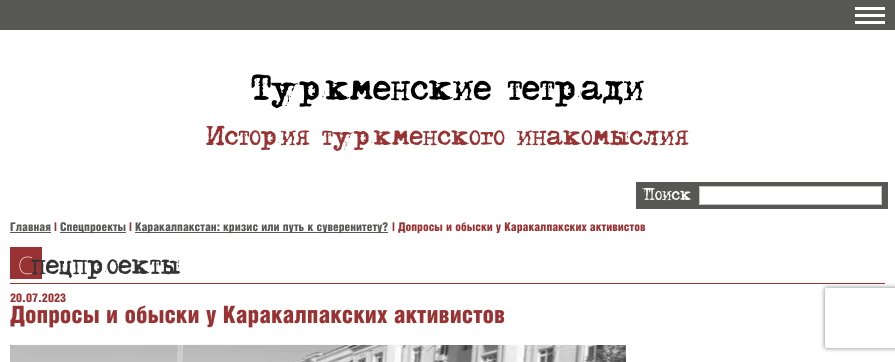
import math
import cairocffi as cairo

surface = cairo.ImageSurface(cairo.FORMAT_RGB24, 895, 362)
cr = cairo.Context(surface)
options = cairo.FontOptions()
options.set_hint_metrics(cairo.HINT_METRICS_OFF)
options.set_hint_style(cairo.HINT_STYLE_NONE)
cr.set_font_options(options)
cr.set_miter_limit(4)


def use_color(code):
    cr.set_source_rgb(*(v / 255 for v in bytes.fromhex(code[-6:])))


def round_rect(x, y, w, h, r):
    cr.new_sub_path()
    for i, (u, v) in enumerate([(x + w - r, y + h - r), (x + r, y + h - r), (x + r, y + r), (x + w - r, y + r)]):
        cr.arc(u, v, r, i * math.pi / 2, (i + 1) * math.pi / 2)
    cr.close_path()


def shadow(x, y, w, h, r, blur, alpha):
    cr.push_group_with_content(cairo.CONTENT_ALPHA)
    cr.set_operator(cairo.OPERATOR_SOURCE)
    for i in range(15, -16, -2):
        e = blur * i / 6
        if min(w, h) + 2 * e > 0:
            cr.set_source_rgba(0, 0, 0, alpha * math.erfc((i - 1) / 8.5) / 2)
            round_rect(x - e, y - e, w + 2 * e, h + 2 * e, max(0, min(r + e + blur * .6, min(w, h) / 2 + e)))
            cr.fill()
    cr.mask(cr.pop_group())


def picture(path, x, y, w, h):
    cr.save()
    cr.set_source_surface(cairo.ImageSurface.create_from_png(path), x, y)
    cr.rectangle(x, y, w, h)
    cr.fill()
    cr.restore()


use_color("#ffffff")
cr.paint()
use_color("#575756")
cr.rectangle(0, 0, 895, 30)
cr.fill()
use_color("#ffffff")
cr.rectangle(855, 7, 30, 3)
cr.fill()
cr.rectangle(855, 14, 30, 3)
cr.fill()
cr.rectangle(855, 21, 30, 3)
cr.fill()
cr.select_font_face("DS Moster")
cr.set_font_size(32)
use_color("#000000")
cr.move_to(251, 100)
cr.show_text("Туркменские тетради")
cr.set_font_size(24)
use_color("#993333")
cr.move_to(206, 145)
cr.show_text("История туркменского инакомыслия")
use_color("#575756")
cr.rectangle(636, 182, 252, 27)
cr.fill()
cr.set_font_size(15)
use_color("#ffffff")
cr.move_to(642, 200)
cr.show_text("Поиск")
cr.rectangle(699.5, 186.5, 182, 18)
cr.fill_preserve()
use_color("#c6c6c5")
cr.set_line_width(1)
cr.stroke()
cr.select_font_face("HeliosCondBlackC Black")
cr.set_font_size(12)
use_color("#575756")
cr.move_to(10, 231)
cr.show_text("Главная")
cr.rectangle(10, 232, 41, 1)
cr.fill()
use_color("#993333")
cr.move_to(54, 231)
cr.show_text("|")
use_color("#575756")
cr.rectangle(60, 232, 66, 1)
cr.fill()
cr.move_to(60, 231)
cr.show_text("Спецпроекты")
use_color("#993333")
cr.move_to(129, 231)
cr.show_text("|")
use_color("#575756")
cr.rectangle(135, 232, 253, 1)
cr.fill()
cr.move_to(135, 231)
cr.show_text("Каракалпакстан: кризис или путь к суверенитету?")
use_color("#993333")
cr.move_to(392, 231)
cr.show_text("| Допросы и обыски у Каракалпакских активистов")
cr.rectangle(10, 247, 32, 32)
cr.fill()
cr.select_font_face("Noto Sans Thin")
cr.set_font_size(24)
use_color("#ffffff")
cr.move_to(18, 274)
cr.show_text("С")
cr.select_font_face("DS Moster")
use_color("#333333")
cr.move_to(31, 274)
cr.show_text("пецпроекты")
cr.save()
cr.set_fill_rule(cairo.FILL_RULE_EVEN_ODD)
cr.new_path()
cr.move_to(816, 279)
cr.line_to(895, 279)
cr.line_to(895, 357)
cr.line_to(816, 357)
cr.close_path()
cr.move_to(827, 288)
cr.line_to(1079, 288)
cr.curve_to(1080, 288, 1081, 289, 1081, 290)
cr.line_to(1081, 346)
cr.curve_to(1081, 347, 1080, 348, 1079, 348)
cr.line_to(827, 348)
cr.curve_to(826, 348, 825, 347, 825, 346)
cr.line_to(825, 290)
cr.curve_to(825, 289, 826, 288, 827, 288)
cr.close_path()
cr.clip()
use_color("#808080")
shadow(825, 288, 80, 60, 2, 2.5, 1)
cr.restore()
use_color("#993333")
cr.rectangle(10, 283, 875, 1)
cr.fill()
cr.select_font_face("HeliosCondBlackC Black")
cr.set_font_size(12)
cr.move_to(10, 302)
cr.show_text("20.07.2023")
cr.set_font_size(24)
cr.move_to(10, 323)
cr.show_text("Допросы и обыски у Каракалпакских активистов")
picture("img1.png", 10, 344, 616, 18)
surface.write_to_png("result.png")
